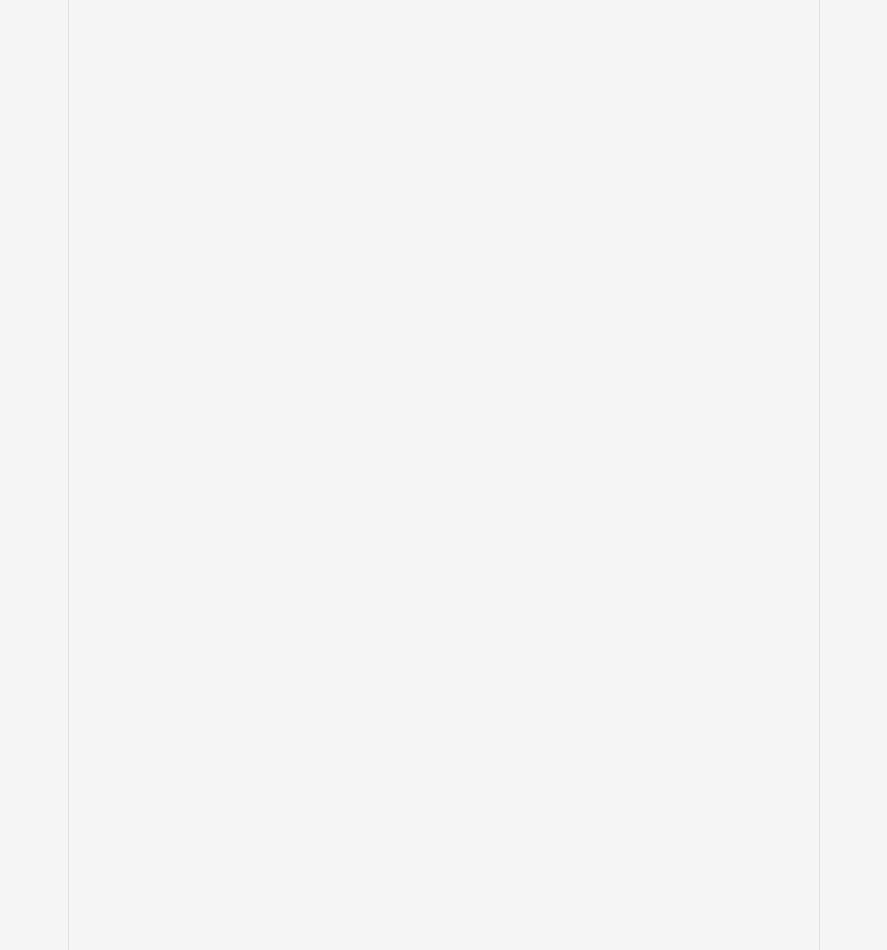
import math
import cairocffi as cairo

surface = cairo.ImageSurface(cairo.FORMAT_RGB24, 887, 950)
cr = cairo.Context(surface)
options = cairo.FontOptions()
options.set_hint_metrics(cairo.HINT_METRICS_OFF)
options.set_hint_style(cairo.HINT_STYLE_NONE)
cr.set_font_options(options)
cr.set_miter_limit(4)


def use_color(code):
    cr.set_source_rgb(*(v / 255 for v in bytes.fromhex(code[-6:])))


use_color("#f5f5f5")
cr.paint()
use_color("#e0e0e0")
cr.rectangle(819, 0, 1, 950)
cr.fill()
cr.rectangle(68, 0, 1, 950)
cr.fill()
surface.write_to_png("result.png")
